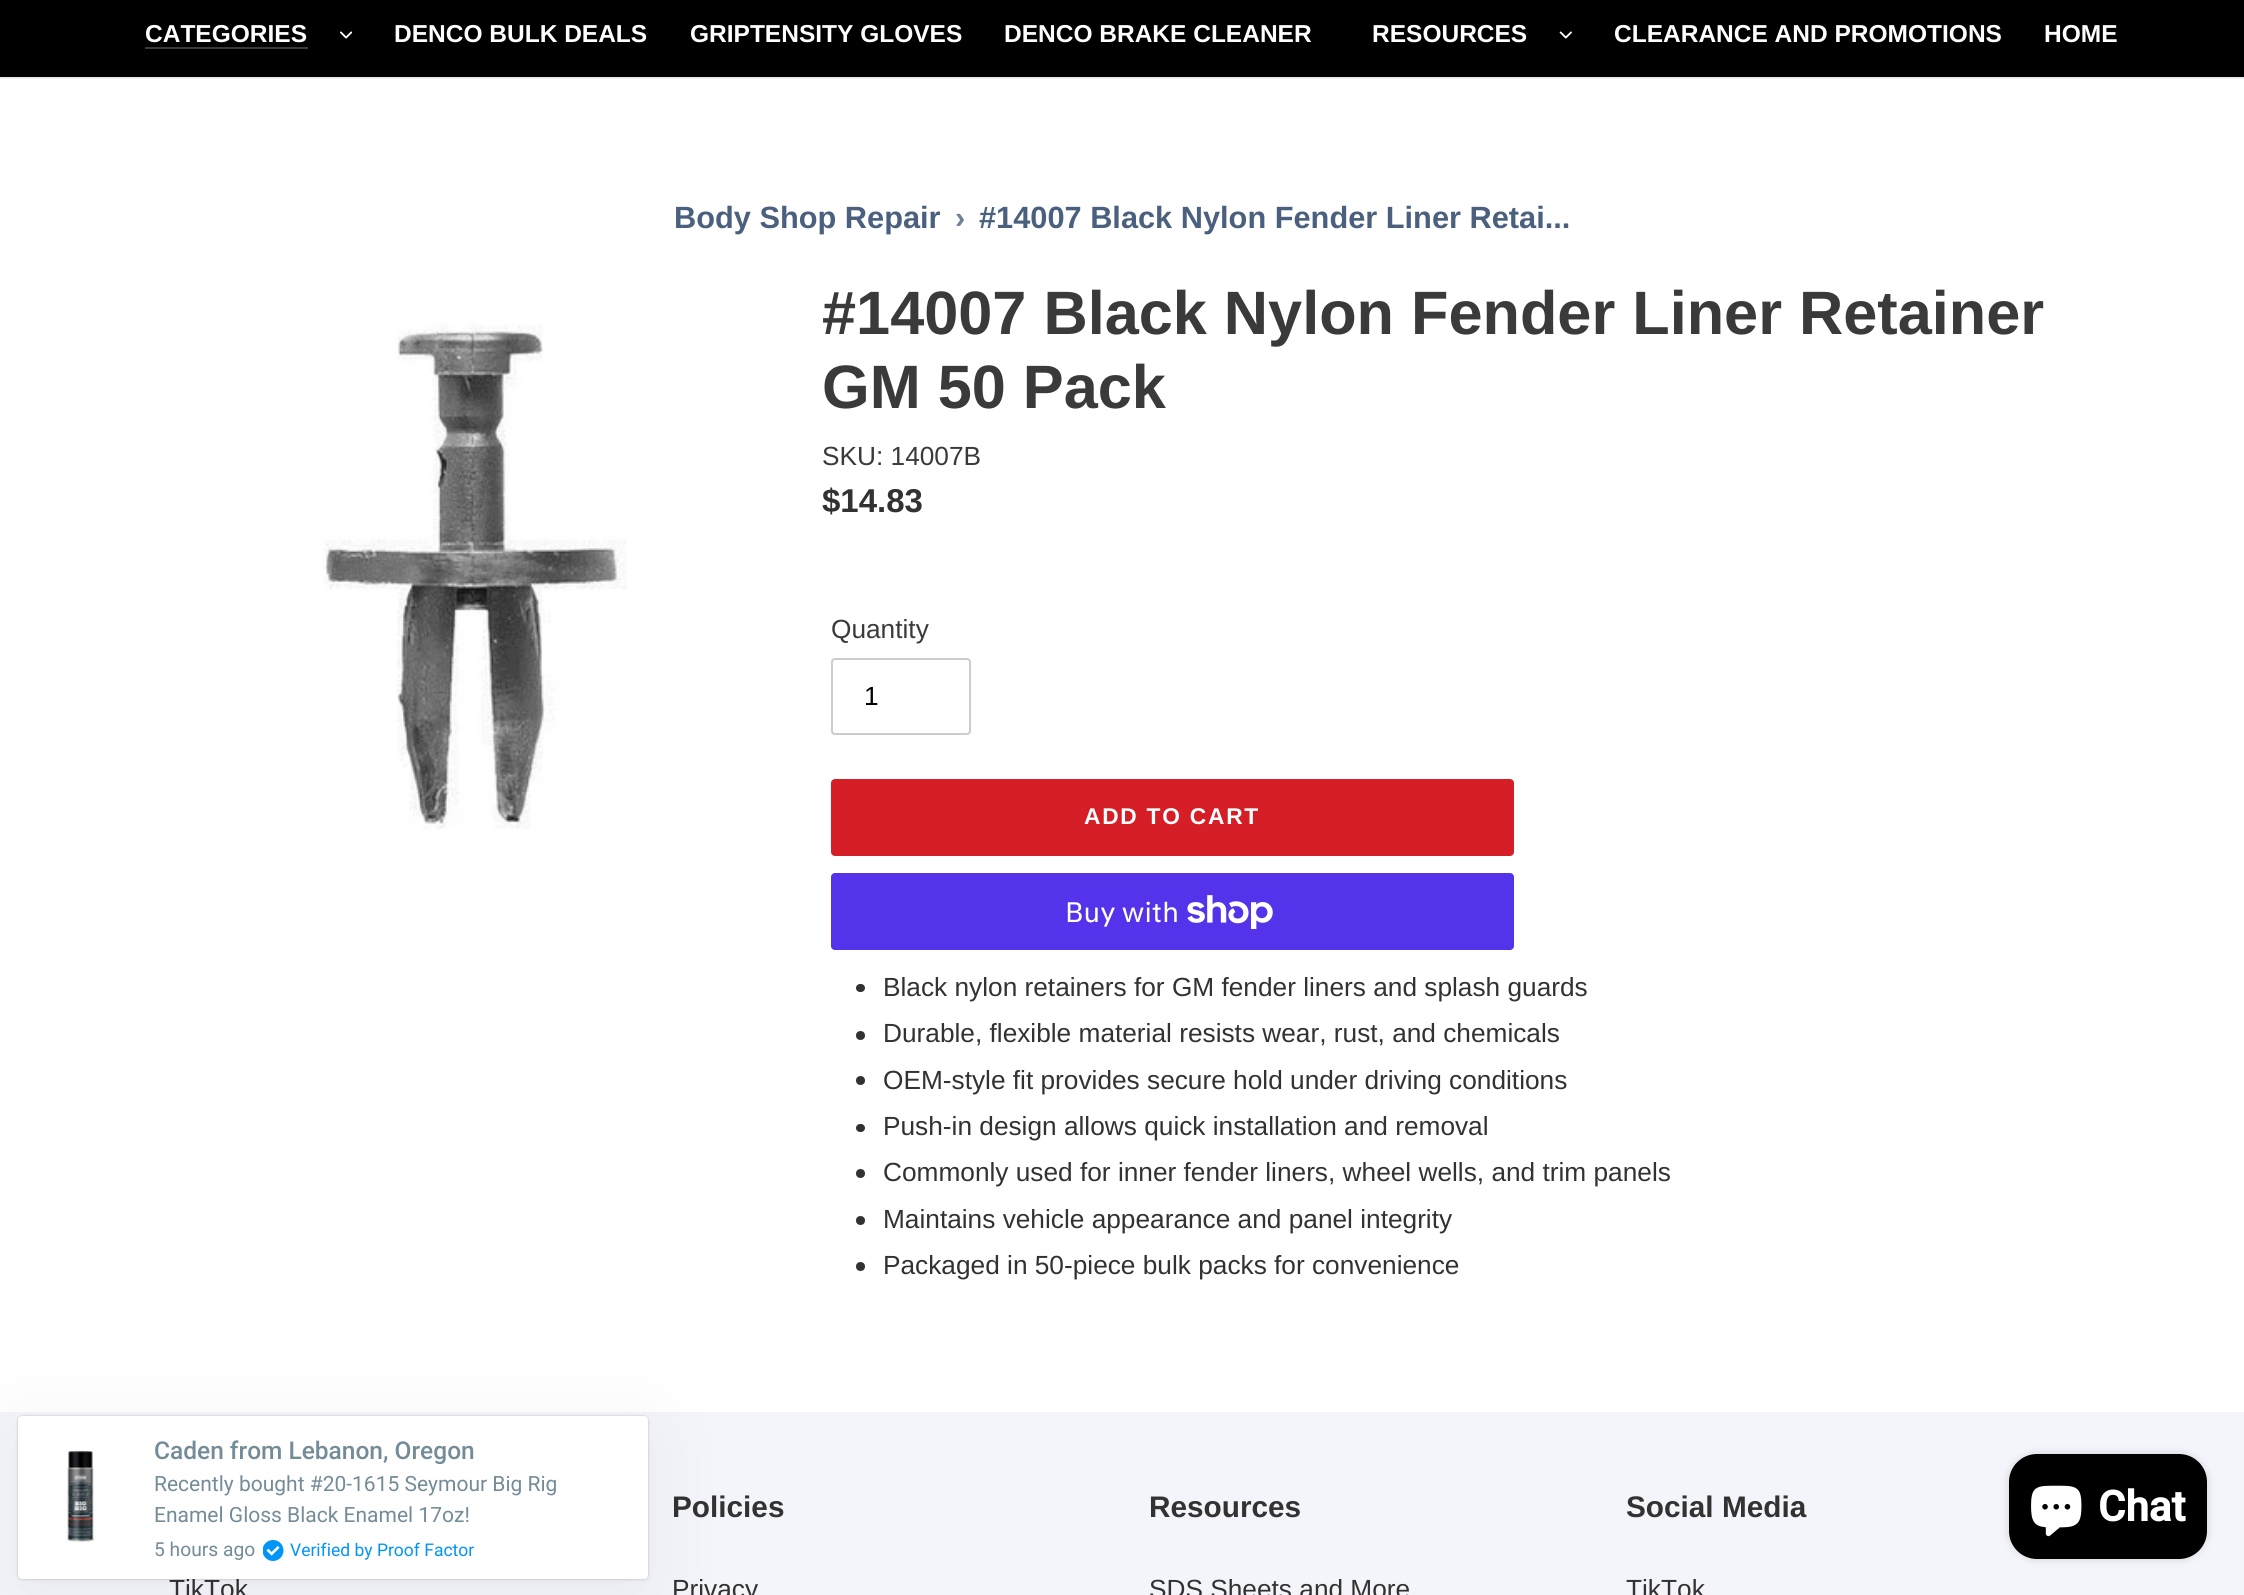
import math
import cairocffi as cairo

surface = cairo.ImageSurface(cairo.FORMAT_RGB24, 2244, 1595)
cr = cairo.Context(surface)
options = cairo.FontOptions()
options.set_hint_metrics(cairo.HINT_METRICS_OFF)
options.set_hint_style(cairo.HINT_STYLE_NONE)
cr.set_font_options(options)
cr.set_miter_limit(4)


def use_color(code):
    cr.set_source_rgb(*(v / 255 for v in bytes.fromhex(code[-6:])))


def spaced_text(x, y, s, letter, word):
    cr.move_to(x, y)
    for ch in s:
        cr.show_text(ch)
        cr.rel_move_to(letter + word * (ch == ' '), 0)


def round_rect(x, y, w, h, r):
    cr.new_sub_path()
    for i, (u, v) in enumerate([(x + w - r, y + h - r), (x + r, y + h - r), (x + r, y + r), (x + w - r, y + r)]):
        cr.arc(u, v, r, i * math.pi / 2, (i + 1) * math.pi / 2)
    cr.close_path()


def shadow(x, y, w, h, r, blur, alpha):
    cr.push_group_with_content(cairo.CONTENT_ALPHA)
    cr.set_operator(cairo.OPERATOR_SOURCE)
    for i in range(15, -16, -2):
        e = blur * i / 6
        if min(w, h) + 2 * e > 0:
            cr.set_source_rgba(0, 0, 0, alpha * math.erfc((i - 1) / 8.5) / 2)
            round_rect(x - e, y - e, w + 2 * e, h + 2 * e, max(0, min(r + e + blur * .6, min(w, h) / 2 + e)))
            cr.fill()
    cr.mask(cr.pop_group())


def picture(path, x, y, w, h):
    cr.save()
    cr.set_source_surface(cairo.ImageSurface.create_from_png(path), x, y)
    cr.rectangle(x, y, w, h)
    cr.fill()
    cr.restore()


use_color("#ffffff")
cr.paint()
use_color("#ebebeb")
cr.rectangle(0, 77, 2244, 2)
cr.fill()
use_color("#000000")
cr.rectangle(0, 0, 2244, 77)
cr.fill()
cr.select_font_face("Liberation Sans", cairo.FONT_SLANT_NORMAL, cairo.FONT_WEIGHT_BOLD)
cr.set_font_size(24.5)
use_color("#ffffff")
cr.move_to(145, 42)
cr.show_text("CATEGORIES")
use_color("#3a3a3a")
cr.rectangle(145, 47, 163, 2)
cr.fill()
picture("img1.png", 340, 31, 12, 8)
use_color("#ffffff")
cr.move_to(394, 42)
cr.show_text("DENCO BULK DEALS")
cr.move_to(690, 42)
cr.show_text("GRIPTENSITY GLOVES")
cr.move_to(1004, 42)
cr.show_text("DENCO BRAKE CLEANER")
cr.move_to(1372, 42)
cr.show_text("RESOURCES")
picture("img2.png", 1559, 31, 13, 8)
cr.move_to(1614, 42)
cr.show_text("CLEARANCE AND PROMOTIONS")
cr.move_to(2044, 42)
cr.show_text("HOME")
cr.set_font_size(30.75)
use_color("#4a607e")
cr.move_to(674, 228)
cr.show_text("Body Shop Repair")
use_color("#6e8098")
cr.move_to(955, 228)
cr.show_text("›")
use_color("#4a607e")
cr.move_to(979, 228)
cr.show_text("#14007 Black Nylon Fender Liner Retai...")
picture("img3.png", 323, 323, 305, 507)
cr.set_font_size(61.25)
use_color("#3a3a3a")
cr.move_to(822, 334)
cr.show_text("#14007 Black Nylon Fender Liner Retainer")
cr.move_to(822, 408)
cr.show_text("GM 50 Pack")
cr.select_font_face("Liberation Sans")
cr.set_font_size(26.25)
cr.move_to(822, 465)
cr.show_text("SKU: 14007B")
cr.select_font_face("Liberation Sans", cairo.FONT_SLANT_NORMAL, cairo.FONT_WEIGHT_BOLD)
cr.set_font_size(33)
use_color("#333232")
cr.move_to(822, 512)
cr.show_text("$14.83")
cr.select_font_face("Liberation Sans")
cr.set_font_size(26.25)
use_color("#3a3a3a")
cr.move_to(831, 638)
cr.show_text("Quantity")
round_rect(832, 659, 138, 75, 3)
use_color("#cccccc")
cr.stroke()
use_color("#000000")
cr.move_to(864, 705)
cr.show_text("1")
use_color("#d61e26")
round_rect(832, 780, 681, 75, 3)
cr.fill_preserve()
cr.stroke()
cr.select_font_face("Liberation Sans", cairo.FONT_SLANT_NORMAL, cairo.FONT_WEIGHT_BOLD)
cr.set_font_size(22.75)
use_color("#ffffff")
spaced_text(1084, 824, "ADD TO CART", 1.75, 0)
use_color("#5433eb")
round_rect(831, 873, 683, 77, 4)
cr.fill()
cr.select_font_face("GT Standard")
cr.set_font_size(28)
use_color("#ffffff")
cr.move_to(1065, 922)
cr.show_text("Buy with")
picture("img4.png", 1187, 895, 86, 34)
use_color("#333232")
round_rect(856, 984, 9, 8, 4)
cr.fill()
cr.select_font_face("Liberation Sans")
cr.set_font_size(26.25)
cr.move_to(883, 996)
cr.show_text("Black nylon retainers for GM fender liners and splash guards")
cr.new_path()
cr.arc(860.5, 1035.5, 4.5, 0, 2 * math.pi)
cr.fill()
cr.move_to(883, 1042)
cr.show_text("Durable, flexible material resists wear, rust, and chemicals")
cr.new_path()
cr.arc(860.5, 1080.5, 4.5, 0, 2 * math.pi)
cr.fill()
cr.move_to(883, 1089)
cr.show_text("OEM-style fit provides secure hold under driving conditions")
round_rect(856, 1124, 9, 8, 4)
cr.fill()
cr.move_to(883, 1135)
cr.show_text("Push-in design allows quick installation and removal")
cr.new_path()
cr.arc(860.5, 1173.5, 4.5, 0, 2 * math.pi)
cr.fill()
cr.move_to(883, 1181)
cr.show_text("Commonly used for inner fender liners, wheel wells, and trim panels")
cr.new_path()
cr.arc(860.5, 1220.5, 4.5, 0, 2 * math.pi)
cr.fill()
cr.move_to(883, 1228)
cr.show_text("Maintains vehicle appearance and panel integrity")
cr.new_path()
cr.arc(860.5, 1266.5, 4.5, 0, 2 * math.pi)
cr.fill()
cr.move_to(883, 1274)
cr.show_text("Packaged in 50-piece bulk packs for convenience")
use_color("#f4f5fa")
cr.rectangle(0, 1412, 2244, 183)
cr.fill()
use_color("#333232")
cr.move_to(169, 1598)
cr.show_text("TikTok")
cr.select_font_face("Liberation Sans", cairo.FONT_SLANT_NORMAL, cairo.FONT_WEIGHT_BOLD)
cr.set_font_size(29.75)
cr.move_to(672, 1517)
cr.show_text("Policies")
cr.select_font_face("Liberation Sans")
cr.set_font_size(26.25)
cr.move_to(672, 1598)
cr.show_text("Privacy")
cr.select_font_face("Liberation Sans", cairo.FONT_SLANT_NORMAL, cairo.FONT_WEIGHT_BOLD)
cr.set_font_size(29.75)
cr.move_to(1149, 1517)
cr.show_text("Resources")
cr.select_font_face("Liberation Sans")
cr.set_font_size(26.25)
cr.move_to(1149, 1598)
cr.show_text("SDS Sheets and More")
cr.select_font_face("Liberation Sans", cairo.FONT_SLANT_NORMAL, cairo.FONT_WEIGHT_BOLD)
cr.set_font_size(29.75)
cr.move_to(1626, 1517)
cr.show_text("Social Media")
cr.select_font_face("Liberation Sans")
cr.set_font_size(26.25)
cr.move_to(1626, 1598)
cr.show_text("TikTok")
use_color("#000000")
shadow(18, 1430, 630, 163, 4, 44, 0.05)
shadow(18, 1418, 630, 162, 4, 2, 0.05)
shadow(18, 1416, 630, 163, 4, 1, 0.2)
use_color("#ffffff")
round_rect(18, 1416, 630, 163, 4)
cr.fill()
picture("img5.png", 66, 1450, 29, 93)
cr.select_font_face("Roboto Medium")
cr.set_font_size(24.5)
use_color("#738c98")
cr.move_to(154, 1459)
cr.show_text("Caden from Lebanon, Oregon")
cr.select_font_face("Roboto")
cr.set_font_size(21)
cr.move_to(154, 1491)
cr.show_text("Recently bought #20-1615 Seymour Big Rig")
cr.move_to(154, 1522)
cr.show_text("Enamel Gloss Black Enamel 17oz!")
cr.set_font_size(19.25)
cr.move_to(154, 1556)
cr.show_text("5 hours ago")
picture("img6.png", 263, 1540, 21, 21)
cr.set_font_size(17.5)
use_color("#0095f7")
cr.move_to(290, 1556)
cr.show_text("Verified by Proof Factor")
use_color("#000000")
shadow(2009, 1454, 198, 105, 28, 4.5, 0.15)
use_color("#000000")
round_rect(2009, 1454, 198, 105, 28)
cr.fill()
picture("img7.png", 2031, 1485, 51, 52)
cr.select_font_face("Roboto", cairo.FONT_SLANT_NORMAL, cairo.FONT_WEIGHT_BOLD)
cr.set_font_size(42)
use_color("#ffffff")
cr.move_to(2098, 1521)
cr.show_text("Chat")
surface.write_to_png("result.png")
